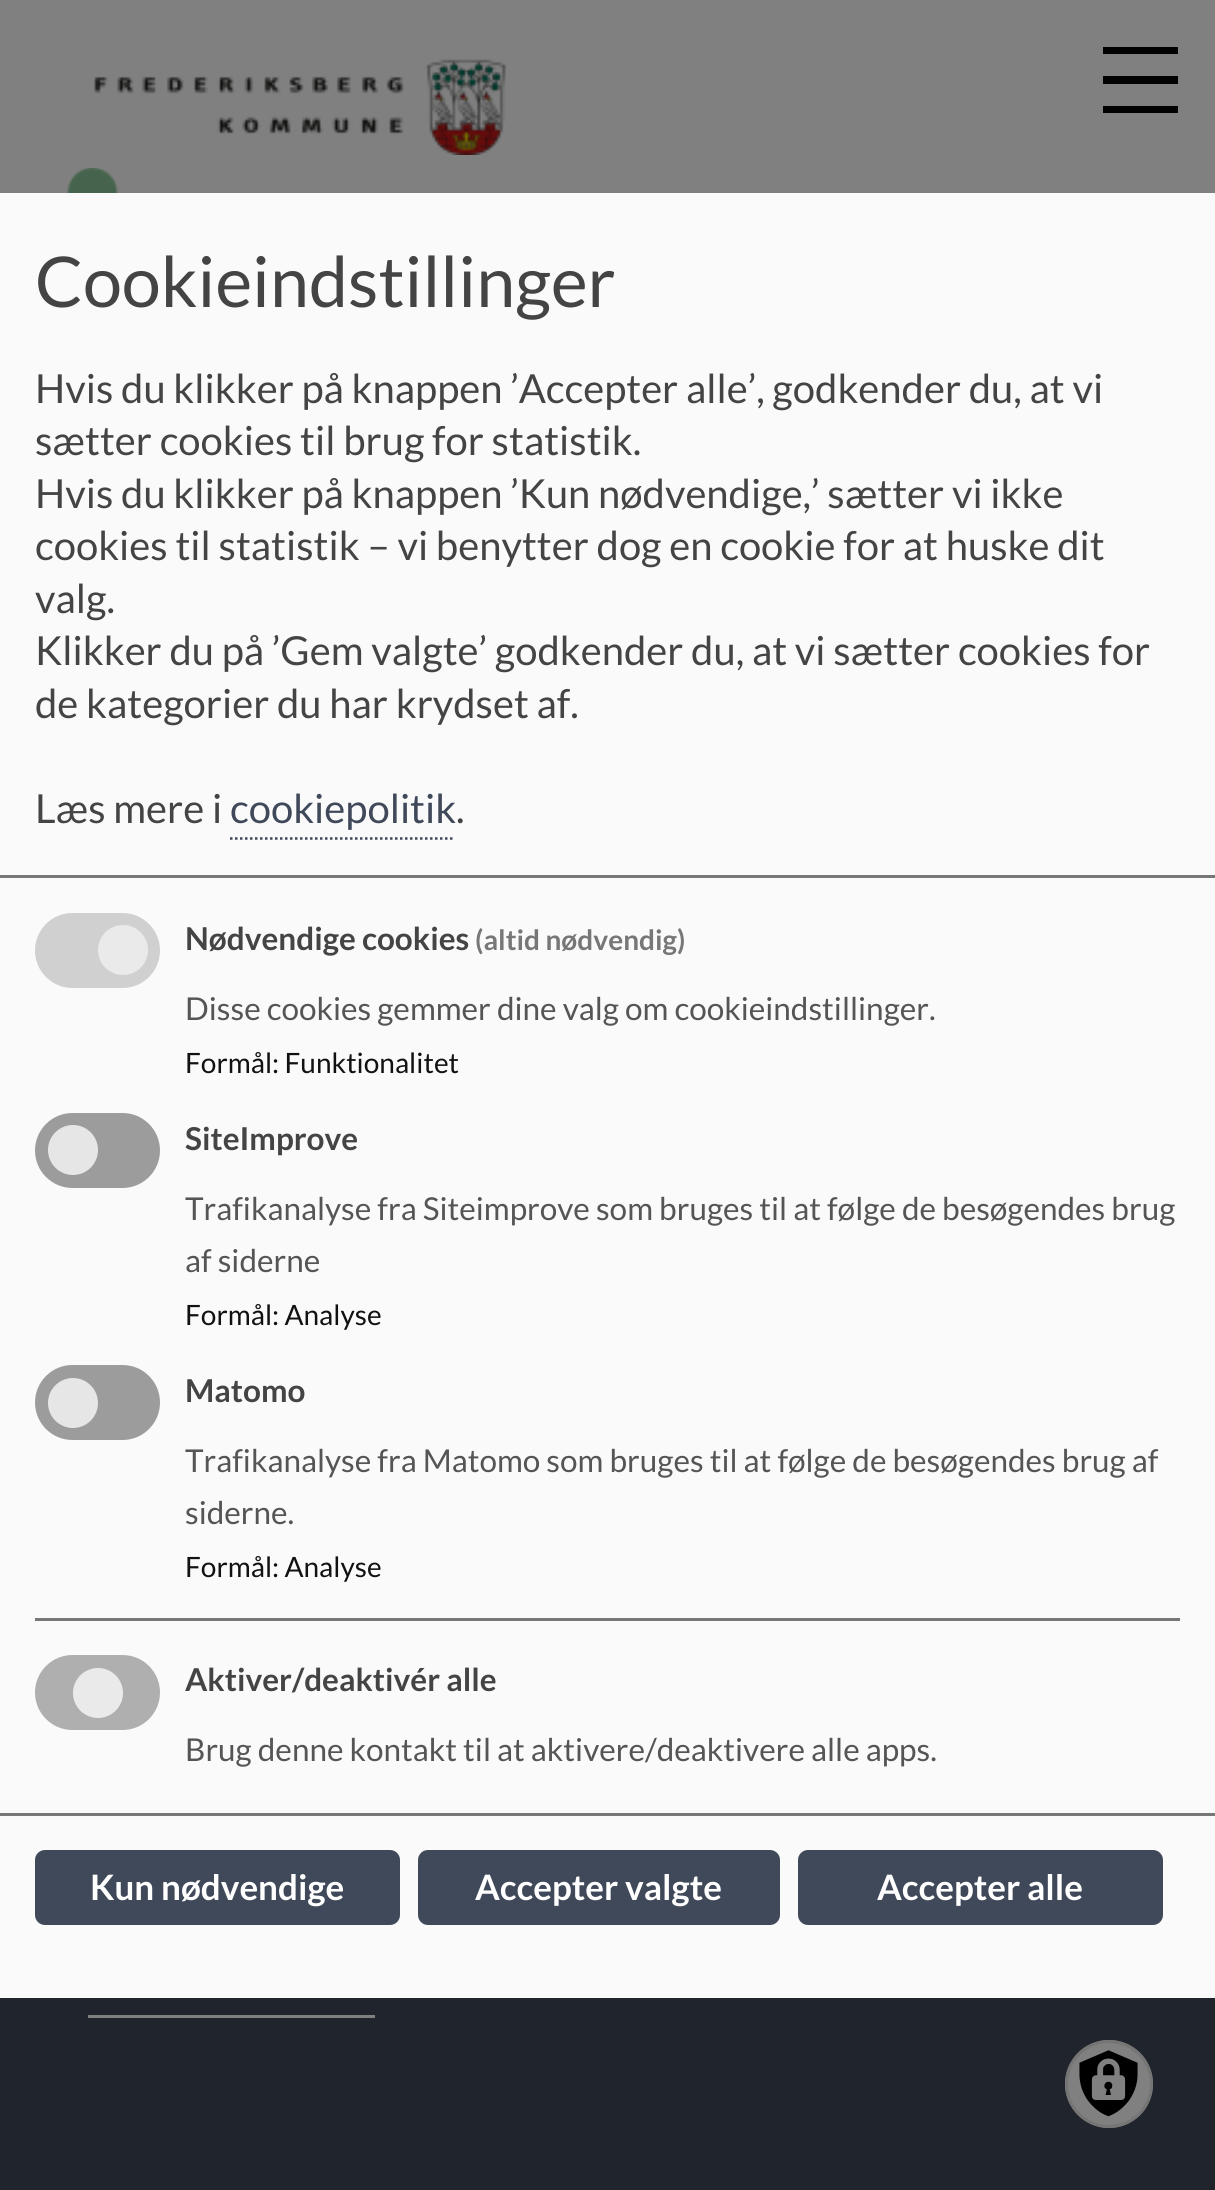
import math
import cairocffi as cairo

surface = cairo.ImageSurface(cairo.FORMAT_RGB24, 1215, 2190)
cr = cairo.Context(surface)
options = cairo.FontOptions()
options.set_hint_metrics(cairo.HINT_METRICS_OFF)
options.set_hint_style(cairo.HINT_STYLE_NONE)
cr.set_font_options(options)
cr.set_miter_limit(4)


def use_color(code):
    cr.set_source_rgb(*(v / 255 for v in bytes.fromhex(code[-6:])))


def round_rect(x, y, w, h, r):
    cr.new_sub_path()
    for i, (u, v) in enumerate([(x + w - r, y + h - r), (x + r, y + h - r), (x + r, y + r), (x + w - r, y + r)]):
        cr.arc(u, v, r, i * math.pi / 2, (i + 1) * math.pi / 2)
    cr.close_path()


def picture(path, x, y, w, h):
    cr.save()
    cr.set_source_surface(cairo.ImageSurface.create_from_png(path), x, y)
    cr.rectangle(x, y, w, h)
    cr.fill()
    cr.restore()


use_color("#20252d")
cr.paint()
use_color("#808080")
cr.rectangle(0, 0, 1215, 193)
cr.fill()
picture("img1.png", 94, 59, 413, 96)
picture("img2.png", 67, 168, 52, 25)
use_color("#030203")
cr.rectangle(1103, 106, 75, 7)
cr.fill()
cr.rectangle(1103, 76, 75, 8)
cr.fill()
cr.rectangle(1103, 47, 75, 7)
cr.fill()
use_color("#808080")
cr.rectangle(88, 2015, 287, 3)
cr.fill()
use_color("#fafafa")
cr.rectangle(0, 193, 1215, 1805)
cr.fill()
use_color("#777777")
cr.rectangle(0, 875, 1215, 3)
cr.fill()
cr.select_font_face("Lato")
cr.set_font_size(70)
use_color("#444444")
cr.move_to(35, 307)
cr.show_text("Cookieindstillinger")
cr.set_font_size(40)
cr.move_to(35, 403)
cr.show_text("Hvis du klikker på knappen ’Accepter alle’, godkender du, at vi")
cr.move_to(35, 455)
cr.show_text("sætter cookies til brug for statistik.")
cr.move_to(35, 508)
cr.show_text("Hvis du klikker på knappen ’Kun nødvendige,’ sætter vi ikke")
cr.move_to(35, 560)
cr.show_text("cookies til statistik – vi benytter dog en cookie for at huske dit")
cr.move_to(35, 613)
cr.show_text("valg.")
cr.move_to(35, 665)
cr.show_text("Klikker du på ’Gem valgte’ godkender du, at vi sætter cookies for")
cr.move_to(35, 718)
cr.show_text("de kategorier du har krydset af.")
cr.move_to(35, 823)
cr.show_text("Læs mere i")
cr.new_path()
cr.move_to(230, 838.5)
cr.line_to(455, 838.5)
use_color("#404959")
cr.set_line_width(2.5)
cr.set_dash([2.5, 2.5])
cr.stroke()
cr.move_to(230, 823)
cr.show_text("cookiepolitik")
use_color("#444444")
cr.move_to(456, 823)
cr.show_text(".")
use_color("#d0d0d0")
round_rect(35, 913, 125, 75, 37.5)
cr.fill()
use_color("#eaeaea")
cr.arc(123, 950, 25, 0, 2 * math.pi)
cr.fill()
cr.select_font_face("Lato", cairo.FONT_SLANT_NORMAL, cairo.FONT_WEIGHT_BOLD)
cr.set_font_size(31.5)
use_color("#444444")
cr.move_to(185, 950)
cr.show_text("Nødvendige cookies")
cr.set_font_size(28)
use_color("#777777")
cr.move_to(475, 950)
cr.show_text("(altid nødvendig)")
cr.select_font_face("Lato")
cr.set_font_size(31.5)
use_color("#555555")
cr.move_to(185, 1020)
cr.show_text("Disse cookies gemmer dine valg om cookieindstillinger.")
cr.set_font_size(28)
use_color("#111111")
cr.move_to(185, 1073)
cr.show_text("Formål: Funktionalitet")
use_color("#9c9c9c")
round_rect(35, 1113, 125, 75, 37.5)
cr.fill()
use_color("#e6e6e6")
cr.arc(73, 1150, 25, 0, 2 * math.pi)
cr.fill()
cr.select_font_face("Lato", cairo.FONT_SLANT_NORMAL, cairo.FONT_WEIGHT_BOLD)
cr.set_font_size(31.5)
use_color("#444444")
cr.move_to(185, 1150)
cr.show_text("SiteImprove")
cr.select_font_face("Lato")
use_color("#555555")
cr.move_to(185, 1220)
cr.show_text("Trafikanalyse fra Siteimprove som bruges til at følge de besøgendes brug")
cr.move_to(185, 1272)
cr.show_text("af siderne")
cr.set_font_size(28)
use_color("#111111")
cr.move_to(185, 1325)
cr.show_text("Formål: Analyse")
use_color("#9c9c9c")
round_rect(35, 1365, 125, 75, 37.5)
cr.fill()
use_color("#e6e6e6")
cr.arc(73, 1403, 25, 0, 2 * math.pi)
cr.fill()
cr.select_font_face("Lato", cairo.FONT_SLANT_NORMAL, cairo.FONT_WEIGHT_BOLD)
cr.set_font_size(31.5)
use_color("#444444")
cr.move_to(185, 1402)
cr.show_text("Matomo")
cr.select_font_face("Lato")
use_color("#555555")
cr.move_to(185, 1472)
cr.show_text("Trafikanalyse fra Matomo som bruges til at følge de besøgendes brug af")
cr.move_to(185, 1524)
cr.show_text("siderne.")
cr.set_font_size(28)
use_color("#111111")
cr.move_to(185, 1577)
cr.show_text("Formål: Analyse")
use_color("#777777")
cr.rectangle(35, 1618, 1145, 3)
cr.fill()
use_color("#afafaf")
round_rect(35, 1655, 125, 75, 37.5)
cr.fill()
use_color("#eaeaea")
cr.arc(98, 1693, 25, 0, 2 * math.pi)
cr.fill()
cr.select_font_face("Lato", cairo.FONT_SLANT_NORMAL, cairo.FONT_WEIGHT_BOLD)
cr.set_font_size(31.5)
use_color("#444444")
cr.move_to(185, 1691)
cr.show_text("Aktiver/deaktivér alle")
cr.select_font_face("Lato")
use_color("#555555")
cr.move_to(185, 1761)
cr.show_text("Brug denne kontakt til at aktivere/deaktivere alle apps.")
use_color("#777777")
cr.rectangle(0, 1813, 1215, 3)
cr.fill()
use_color("#404959")
round_rect(35, 1850, 365, 75, 10)
cr.fill()
cr.select_font_face("Lato", cairo.FONT_SLANT_NORMAL, cairo.FONT_WEIGHT_BOLD)
cr.set_font_size(35)
use_color("#ffffff")
cr.move_to(90, 1900)
cr.show_text("Kun nødvendige")
use_color("#404959")
round_rect(418, 1850, 362, 75, 10)
cr.fill()
use_color("#ffffff")
cr.move_to(475, 1900)
cr.show_text("Accepter valgte")
use_color("#404959")
round_rect(798, 1850, 365, 75, 10)
cr.fill()
use_color("#ffffff")
cr.move_to(877, 1900)
cr.show_text("Accepter alle")
use_color("#808080")
cr.new_path()
cr.arc(1109, 2084, 44, 0, 2 * math.pi)
cr.fill()
picture("img3.png", 1079, 2050, 59, 67)
cr.arc(1109, 2084, 42.5, 0, 2 * math.pi)
use_color("#757575")
cr.set_line_width(3)
cr.set_dash([])
cr.stroke()
surface.write_to_png("result.png")
